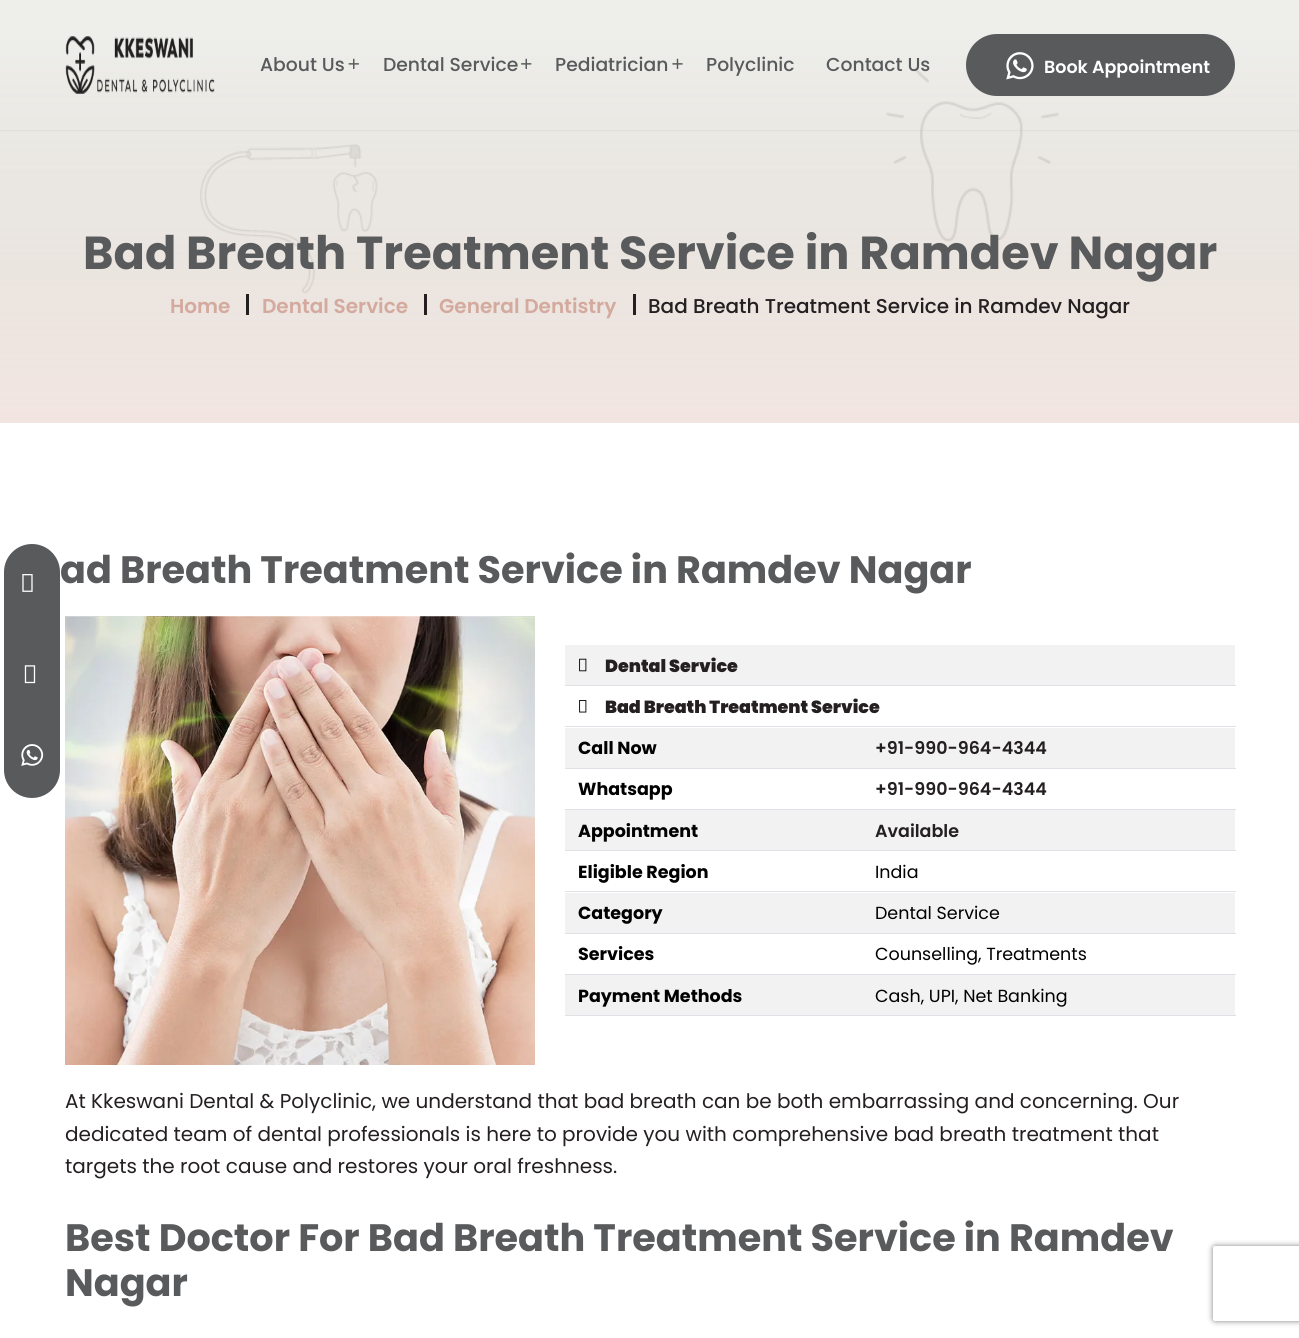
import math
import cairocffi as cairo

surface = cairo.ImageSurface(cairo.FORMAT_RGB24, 1299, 1338)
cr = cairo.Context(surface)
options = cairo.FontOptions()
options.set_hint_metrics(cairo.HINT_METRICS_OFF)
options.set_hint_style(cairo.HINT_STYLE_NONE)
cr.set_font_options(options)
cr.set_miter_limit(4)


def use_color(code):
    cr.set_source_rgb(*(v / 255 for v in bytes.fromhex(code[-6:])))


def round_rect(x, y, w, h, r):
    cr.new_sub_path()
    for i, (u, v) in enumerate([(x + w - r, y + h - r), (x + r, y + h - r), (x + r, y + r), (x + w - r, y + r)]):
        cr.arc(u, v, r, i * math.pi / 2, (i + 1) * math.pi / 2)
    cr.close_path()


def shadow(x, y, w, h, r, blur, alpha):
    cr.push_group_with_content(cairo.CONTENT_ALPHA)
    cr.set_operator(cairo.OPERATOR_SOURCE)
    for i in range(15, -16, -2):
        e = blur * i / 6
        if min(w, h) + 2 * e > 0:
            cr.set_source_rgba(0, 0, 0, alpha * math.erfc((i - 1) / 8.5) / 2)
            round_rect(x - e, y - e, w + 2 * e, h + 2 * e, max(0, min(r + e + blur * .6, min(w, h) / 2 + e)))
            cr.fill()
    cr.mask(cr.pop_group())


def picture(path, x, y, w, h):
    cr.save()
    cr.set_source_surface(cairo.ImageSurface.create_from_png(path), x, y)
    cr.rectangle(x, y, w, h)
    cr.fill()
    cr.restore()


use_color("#ffffff")
cr.paint()
picture("img6.png", 200, 144, 178, 150)
picture("img7.png", 886, 67, 173, 175)
gradient = cairo.LinearGradient(650, 423, 650, 0)
gradient.add_color_stop_rgba(0.03, 0.831, 0.667, 0.62, 0.3)
gradient.add_color_stop_rgba(0.94, 0.349, 0.353, 0.204, 0.1)
cr.set_source(gradient)
cr.rectangle(0, 0, 1299, 423)
cr.fill()
cr.set_source_rgba(0, 0, 0, 0.04)
cr.rectangle(0, 130, 1299, 1)
cr.fill()
picture("img1.png", 65, 36, 150, 58)
cr.select_font_face("Poppins Medium")
cr.set_font_size(18.75)
use_color("#595a5c")
cr.move_to(260, 71)
cr.show_text("About Us")
picture("img2.png", 348, 58, 11, 11)
cr.move_to(383, 71)
cr.show_text("Dental Service")
picture("img3.png", 521, 58, 11, 11)
cr.move_to(555, 71)
cr.show_text("Pediatrician")
picture("img4.png", 672, 58, 11, 11)
cr.move_to(706, 71)
cr.show_text("Polyclinic")
cr.move_to(826, 71)
cr.show_text("Contact Us")
round_rect(966, 34, 269, 62, 31)
cr.fill()
picture("img5.png", 1006, 52, 28, 28)
cr.select_font_face("Poppins SemiBold")
cr.set_font_size(17.5)
use_color("#ffffff")
cr.move_to(1044, 73)
cr.show_text("Book Appointment")
cr.select_font_face("Poppins", cairo.FONT_SLANT_NORMAL, cairo.FONT_WEIGHT_BOLD)
cr.set_font_size(46.25)
use_color("#595a5c")
cr.move_to(83, 269)
cr.show_text("Bad Breath Treatment Service in Ramdev Nagar")
cr.select_font_face("Poppins SemiBold")
cr.set_font_size(20)
use_color("#d4aa9e")
cr.move_to(170, 313)
cr.show_text("Home")
use_color("#241f21")
cr.rectangle(246, 294, 3, 21)
cr.fill()
use_color("#d4aa9e")
cr.move_to(262, 313)
cr.show_text("Dental Service")
use_color("#241f21")
cr.rectangle(424, 294, 3, 21)
cr.fill()
use_color("#d4aa9e")
cr.move_to(439, 313)
cr.show_text("General Dentistry")
use_color("#241f21")
cr.rectangle(633, 294, 3, 21)
cr.fill()
cr.select_font_face("Poppins Medium")
cr.move_to(648, 313)
cr.show_text("Bad Breath Treatment Service in Ramdev Nagar")
use_color("#595a5c")
round_rect(4, 544, 56, 254, 28)
cr.fill()
picture("img8.png", 22, 574, 11, 18)
picture("img9.png", 24, 665, 12, 19)
picture("img10.png", 21, 744, 23, 22)
cr.select_font_face("Poppins", cairo.FONT_SLANT_NORMAL, cairo.FONT_WEIGHT_BOLD)
cr.set_font_size(38.2)
cr.move_to(60, 583)
cr.show_text("ad Breath Treatment Service in Ramdev Nagar")
picture("img11.png", 65, 616, 470, 449)
use_color("#f2f2f2")
cr.rectangle(565, 645, 670, 40)
cr.fill()
use_color("#dee2e6")
cr.rectangle(565, 685, 671, 1)
cr.fill()
picture("img12.png", 579, 658, 8, 14)
cr.select_font_face("Poppins Black")
cr.set_font_size(17.5)
use_color("#241f21")
cr.move_to(605, 672)
cr.show_text("Dental Service")
use_color("#dee2e6")
cr.rectangle(565, 726, 671, 1)
cr.fill()
picture("img13.png", 579, 700, 8, 13)
use_color("#241f21")
cr.move_to(605, 713)
cr.show_text("Bad Breath Treatment Service")
use_color("#f2f2f2")
cr.rectangle(565, 728, 670, 40)
cr.fill()
cr.select_font_face("Poppins", cairo.FONT_SLANT_NORMAL, cairo.FONT_WEIGHT_BOLD)
use_color("#000000")
cr.move_to(578, 754)
cr.show_text("Call Now")
use_color("#dee2e6")
cr.rectangle(565, 768, 671, 1)
cr.fill()
cr.select_font_face("Poppins SemiBold")
use_color("#241f21")
cr.move_to(875, 754)
cr.show_text("+91-990-964-4344")
cr.select_font_face("Poppins", cairo.FONT_SLANT_NORMAL, cairo.FONT_WEIGHT_BOLD)
use_color("#000000")
cr.move_to(578, 795)
cr.show_text("Whatsapp")
use_color("#dee2e6")
cr.rectangle(565, 809, 671, 1)
cr.fill()
cr.select_font_face("Poppins SemiBold")
use_color("#241f21")
cr.move_to(875, 795)
cr.show_text("+91-990-964-4344")
use_color("#f2f2f2")
cr.rectangle(565, 810, 670, 40)
cr.fill()
cr.select_font_face("Poppins", cairo.FONT_SLANT_NORMAL, cairo.FONT_WEIGHT_BOLD)
use_color("#000000")
cr.move_to(578, 837)
cr.show_text("Appointment")
use_color("#dee2e6")
cr.rectangle(565, 850, 671, 1)
cr.fill()
cr.select_font_face("Poppins SemiBold")
use_color("#241f21")
cr.move_to(875, 837)
cr.show_text("Available")
cr.select_font_face("Poppins", cairo.FONT_SLANT_NORMAL, cairo.FONT_WEIGHT_BOLD)
use_color("#000000")
cr.move_to(578, 878)
cr.show_text("Eligible Region")
use_color("#dee2e6")
cr.rectangle(565, 891, 671, 1)
cr.fill()
cr.select_font_face("Poppins")
use_color("#000000")
cr.move_to(875, 878)
cr.show_text("India")
use_color("#f2f2f2")
cr.rectangle(565, 893, 670, 40)
cr.fill()
cr.select_font_face("Poppins", cairo.FONT_SLANT_NORMAL, cairo.FONT_WEIGHT_BOLD)
use_color("#000000")
cr.move_to(578, 919)
cr.show_text("Category")
use_color("#dee2e6")
cr.rectangle(565, 933, 671, 1)
cr.fill()
cr.select_font_face("Poppins")
use_color("#000000")
cr.move_to(875, 919)
cr.show_text("Dental Service")
cr.select_font_face("Poppins", cairo.FONT_SLANT_NORMAL, cairo.FONT_WEIGHT_BOLD)
cr.move_to(578, 960)
cr.show_text("Services")
use_color("#dee2e6")
cr.rectangle(565, 974, 671, 1)
cr.fill()
cr.select_font_face("Poppins")
use_color("#000000")
cr.move_to(875, 960)
cr.show_text("Counselling, Treatments")
use_color("#f2f2f2")
cr.rectangle(565, 975, 670, 40)
cr.fill()
cr.select_font_face("Poppins", cairo.FONT_SLANT_NORMAL, cairo.FONT_WEIGHT_BOLD)
use_color("#000000")
cr.move_to(578, 1002)
cr.show_text("Payment Methods")
use_color("#dee2e6")
cr.rectangle(565, 1015, 671, 1)
cr.fill()
cr.select_font_face("Poppins")
use_color("#000000")
cr.move_to(875, 1002)
cr.show_text("Cash, UPI, Net Banking")
cr.set_font_size(20)
use_color("#241f21")
cr.move_to(65, 1108)
cr.show_text("At Kkeswani Dental & Polyclinic, we understand that bad breath can be both embarrassing and concerning. Our")
cr.move_to(65, 1141)
cr.show_text("dedicated team of dental professionals is here to provide you with comprehensive bad breath treatment that")
cr.move_to(65, 1173)
cr.show_text("targets the root cause and restores your oral freshness.")
cr.select_font_face("Poppins", cairo.FONT_SLANT_NORMAL, cairo.FONT_WEIGHT_BOLD)
cr.set_font_size(38.2)
use_color("#595a5c")
cr.move_to(65, 1251)
cr.show_text("Best Doctor For Bad Breath Treatment Service in Ramdev")
cr.move_to(65, 1296)
cr.show_text("Nagar")
cr.save()
cr.set_fill_rule(cairo.FILL_RULE_EVEN_ODD)
cr.new_path()
cr.move_to(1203, 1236)
cr.line_to(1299, 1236)
cr.line_to(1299, 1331)
cr.line_to(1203, 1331)
cr.close_path()
cr.move_to(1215.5, 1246)
cr.line_to(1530.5, 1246)
cr.curve_to(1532, 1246, 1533, 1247, 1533, 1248.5)
cr.line_to(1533, 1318.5)
cr.curve_to(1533, 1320, 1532, 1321, 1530.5, 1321)
cr.line_to(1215.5, 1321)
cr.curve_to(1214, 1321, 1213, 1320, 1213, 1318.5)
cr.line_to(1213, 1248.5)
cr.curve_to(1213, 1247, 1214, 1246, 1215.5, 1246)
cr.close_path()
cr.clip()
use_color("#808080")
shadow(1213, 1246, 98, 75, 2.5, 3, 1)
cr.restore()
surface.write_to_png("result.png")
